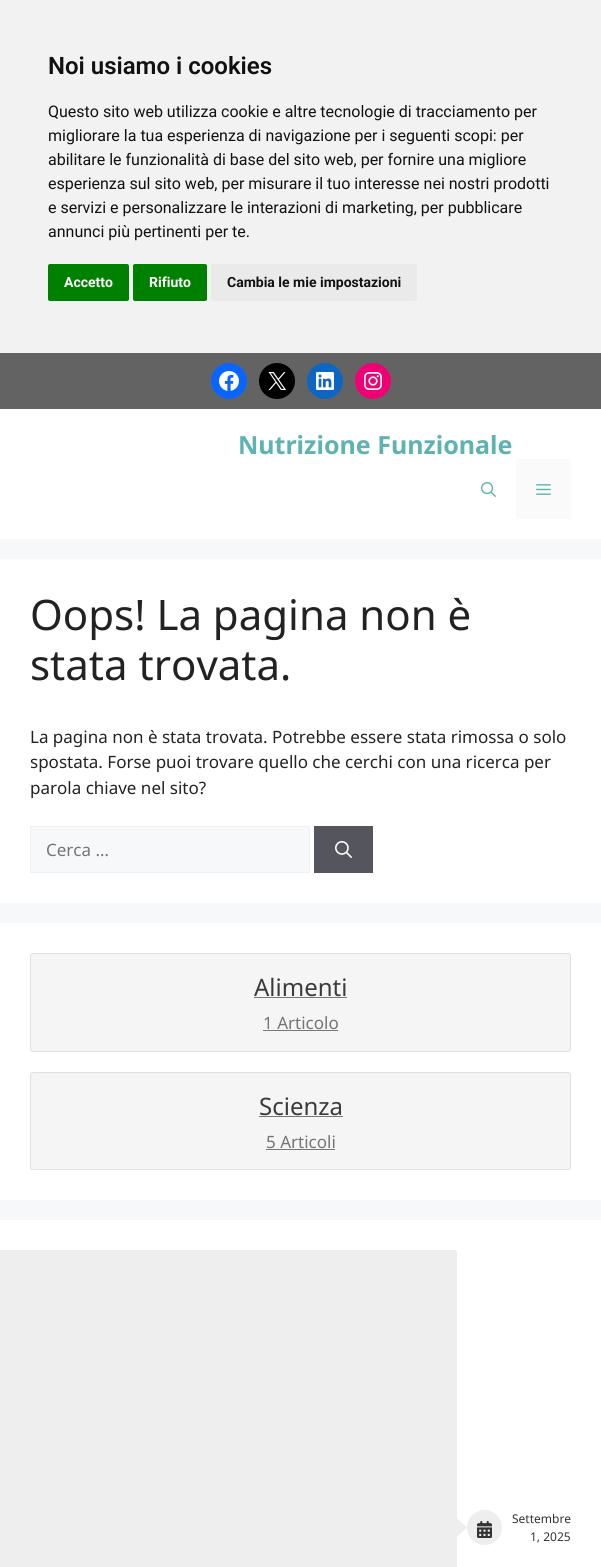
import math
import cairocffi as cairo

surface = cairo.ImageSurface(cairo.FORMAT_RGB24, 601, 1567)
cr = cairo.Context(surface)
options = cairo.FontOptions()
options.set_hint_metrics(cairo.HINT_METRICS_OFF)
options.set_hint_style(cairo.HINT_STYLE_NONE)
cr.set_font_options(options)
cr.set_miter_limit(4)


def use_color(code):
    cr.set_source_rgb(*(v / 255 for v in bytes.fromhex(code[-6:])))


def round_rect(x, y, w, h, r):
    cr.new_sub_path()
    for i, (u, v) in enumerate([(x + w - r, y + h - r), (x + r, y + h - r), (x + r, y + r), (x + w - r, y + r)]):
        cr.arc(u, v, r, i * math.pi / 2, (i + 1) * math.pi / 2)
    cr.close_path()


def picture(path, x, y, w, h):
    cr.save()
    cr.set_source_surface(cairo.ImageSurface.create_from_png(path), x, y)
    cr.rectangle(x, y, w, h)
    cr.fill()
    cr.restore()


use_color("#f7f8f9")
cr.paint()
use_color("#f2f2f2")
cr.rectangle(0, 0, 601, 353)
cr.fill()
cr.select_font_face("Roboto SemiBold")
cr.set_font_size(24)
use_color("#111111")
cr.move_to(48, 74)
cr.show_text("Noi usiamo i cookies")
cr.select_font_face("Roboto")
cr.set_font_size(16)
cr.move_to(48, 117)
cr.show_text("Questo sito web utilizza cookie e altre tecnologie di tracciamento per")
cr.move_to(48, 141)
cr.show_text("migliorare la tua esperienza di navigazione per i seguenti scopi: per")
cr.move_to(48, 165)
cr.show_text("abilitare le funzionalità di base del sito web, per fornire una migliore")
cr.move_to(48, 189)
cr.show_text("esperienza sul sito web, per misurare il tuo interesse nei nostri prodotti")
cr.move_to(48, 213)
cr.show_text("e servizi e personalizzare le interazioni di marketing, per pubblicare")
cr.move_to(48, 237)
cr.show_text("annunci più pertinenti per te.")
use_color("#008000")
round_rect(48, 264, 81, 37, 2)
cr.fill()
cr.select_font_face("Roboto", cairo.FONT_SLANT_NORMAL, cairo.FONT_WEIGHT_BOLD)
cr.set_font_size(14)
use_color("#ffffff")
cr.move_to(64, 287)
cr.show_text("Accetto")
use_color("#008000")
round_rect(133, 264, 74, 37, 2)
cr.fill()
use_color("#ffffff")
cr.move_to(149, 287)
cr.show_text("Rifiuto")
use_color("#eaeaea")
round_rect(211, 264, 206, 37, 2)
cr.fill()
use_color("#111111")
cr.move_to(227, 287)
cr.show_text("Cambia le mie impostazioni")
use_color("#636363")
cr.rectangle(0, 353, 601, 56)
cr.fill()
use_color("#0866ff")
cr.arc(229, 381, 18, 0, 2 * math.pi)
cr.fill()
picture("img1.png", 219, 371, 20, 20)
use_color("#000000")
cr.arc(277, 381, 18, 0, 2 * math.pi)
cr.fill()
picture("img2.png", 268, 372, 18, 18)
use_color("#0d66c2")
cr.arc(325, 381, 18, 0, 2 * math.pi)
cr.fill()
picture("img3.png", 316, 372, 18, 18)
use_color("#f00075")
cr.arc(373, 381, 18, 0, 2 * math.pi)
cr.fill()
picture("img4.png", 364, 372, 18, 18)
use_color("#ffffff")
cr.rectangle(0, 409, 601, 130)
cr.fill()
cr.select_font_face("Noto Sans", cairo.FONT_SLANT_NORMAL, cairo.FONT_WEIGHT_BOLD)
cr.set_font_size(25)
use_color("#5eb2b2")
cr.move_to(238, 454)
cr.show_text("Nutrizione Funzionale")
picture("img5.png", 481, 482, 15, 15)
use_color("#fafafa")
cr.rectangle(516, 459, 55, 60)
cr.fill()
picture("img6.png", 536, 484, 15, 11)
use_color("#ffffff")
cr.rectangle(0, 559, 601, 344)
cr.fill()
cr.select_font_face("Noto Sans")
cr.set_font_size(42)
use_color("#222222")
cr.move_to(30, 630)
cr.show_text("Oops! La pagina non è")
cr.move_to(30, 680)
cr.show_text("stata trovata.")
cr.set_font_size(17)
cr.move_to(30, 743)
cr.show_text("La pagina non è stata trovata. Potrebbe essere stata rimossa o solo")
cr.move_to(30, 768)
cr.show_text("spostata. Forse puoi trovare quello che cerchi con una ricerca per")
cr.move_to(30, 794)
cr.show_text("parola chiave nel sito?")
use_color("#f7f8f9")
cr.rectangle(30.5, 826.5, 279, 46)
cr.fill_preserve()
use_color("#f0f0f0")
cr.set_line_width(1)
cr.stroke()
use_color("#757575")
cr.move_to(46, 856)
cr.show_text("Cerca …")
use_color("#55555e")
cr.rectangle(314, 826, 59, 47)
cr.fill()
picture("img7.png", 335, 841, 17, 17)
use_color("#ffffff")
cr.rectangle(0, 923, 601, 277)
cr.fill()
use_color("#f5f5f5")
round_rect(30.5, 953.5, 540, 98, 2.5)
cr.fill_preserve()
use_color("#e0e0e0")
cr.stroke()
cr.set_font_size(24)
use_color("#3b3b3b")
cr.move_to(254, 996)
cr.show_text("Alimenti")
use_color("#777777")
cr.rectangle(254, 997, 93, 1)
cr.fill()
cr.set_font_size(17)
use_color("#757575")
cr.move_to(263, 1029)
cr.show_text("1 Articolo")
use_color("#777777")
cr.rectangle(263, 1030, 75, 1)
cr.fill()
use_color("#f5f5f5")
round_rect(30.5, 1072.5, 540, 97, 2.5)
cr.fill_preserve()
use_color("#e0e0e0")
cr.stroke()
cr.set_font_size(24)
use_color("#3b3b3b")
cr.move_to(259, 1115)
cr.show_text("Scienza")
use_color("#777777")
cr.rectangle(259, 1116, 84, 1)
cr.fill()
cr.set_font_size(17)
use_color("#757575")
cr.move_to(266, 1148)
cr.show_text("5 Articoli")
use_color("#777777")
cr.rectangle(266, 1149, 69, 1)
cr.fill()
use_color("#ffffff")
cr.rectangle(0, 1220, 601, 347)
cr.fill()
use_color("#eeeeee")
round_rect(-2, 1250, 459, 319, 2)
cr.fill()
cr.new_path()
cr.move_to(454, 1539.5)
cr.line_to(454, 1515.5)
cr.line_to(467, 1527.5)
cr.close_path()
cr.fill()
cr.arc(484.5, 1527.5, 17.5, 0, 2 * math.pi)
cr.fill()
picture("img8.png", 477, 1521, 15, 17)
cr.set_font_size(12)
use_color("#333333")
cr.move_to(512, 1523)
cr.show_text("Settembre")
cr.move_to(530, 1541)
cr.show_text("1, 2025")
surface.write_to_png("result.png")
